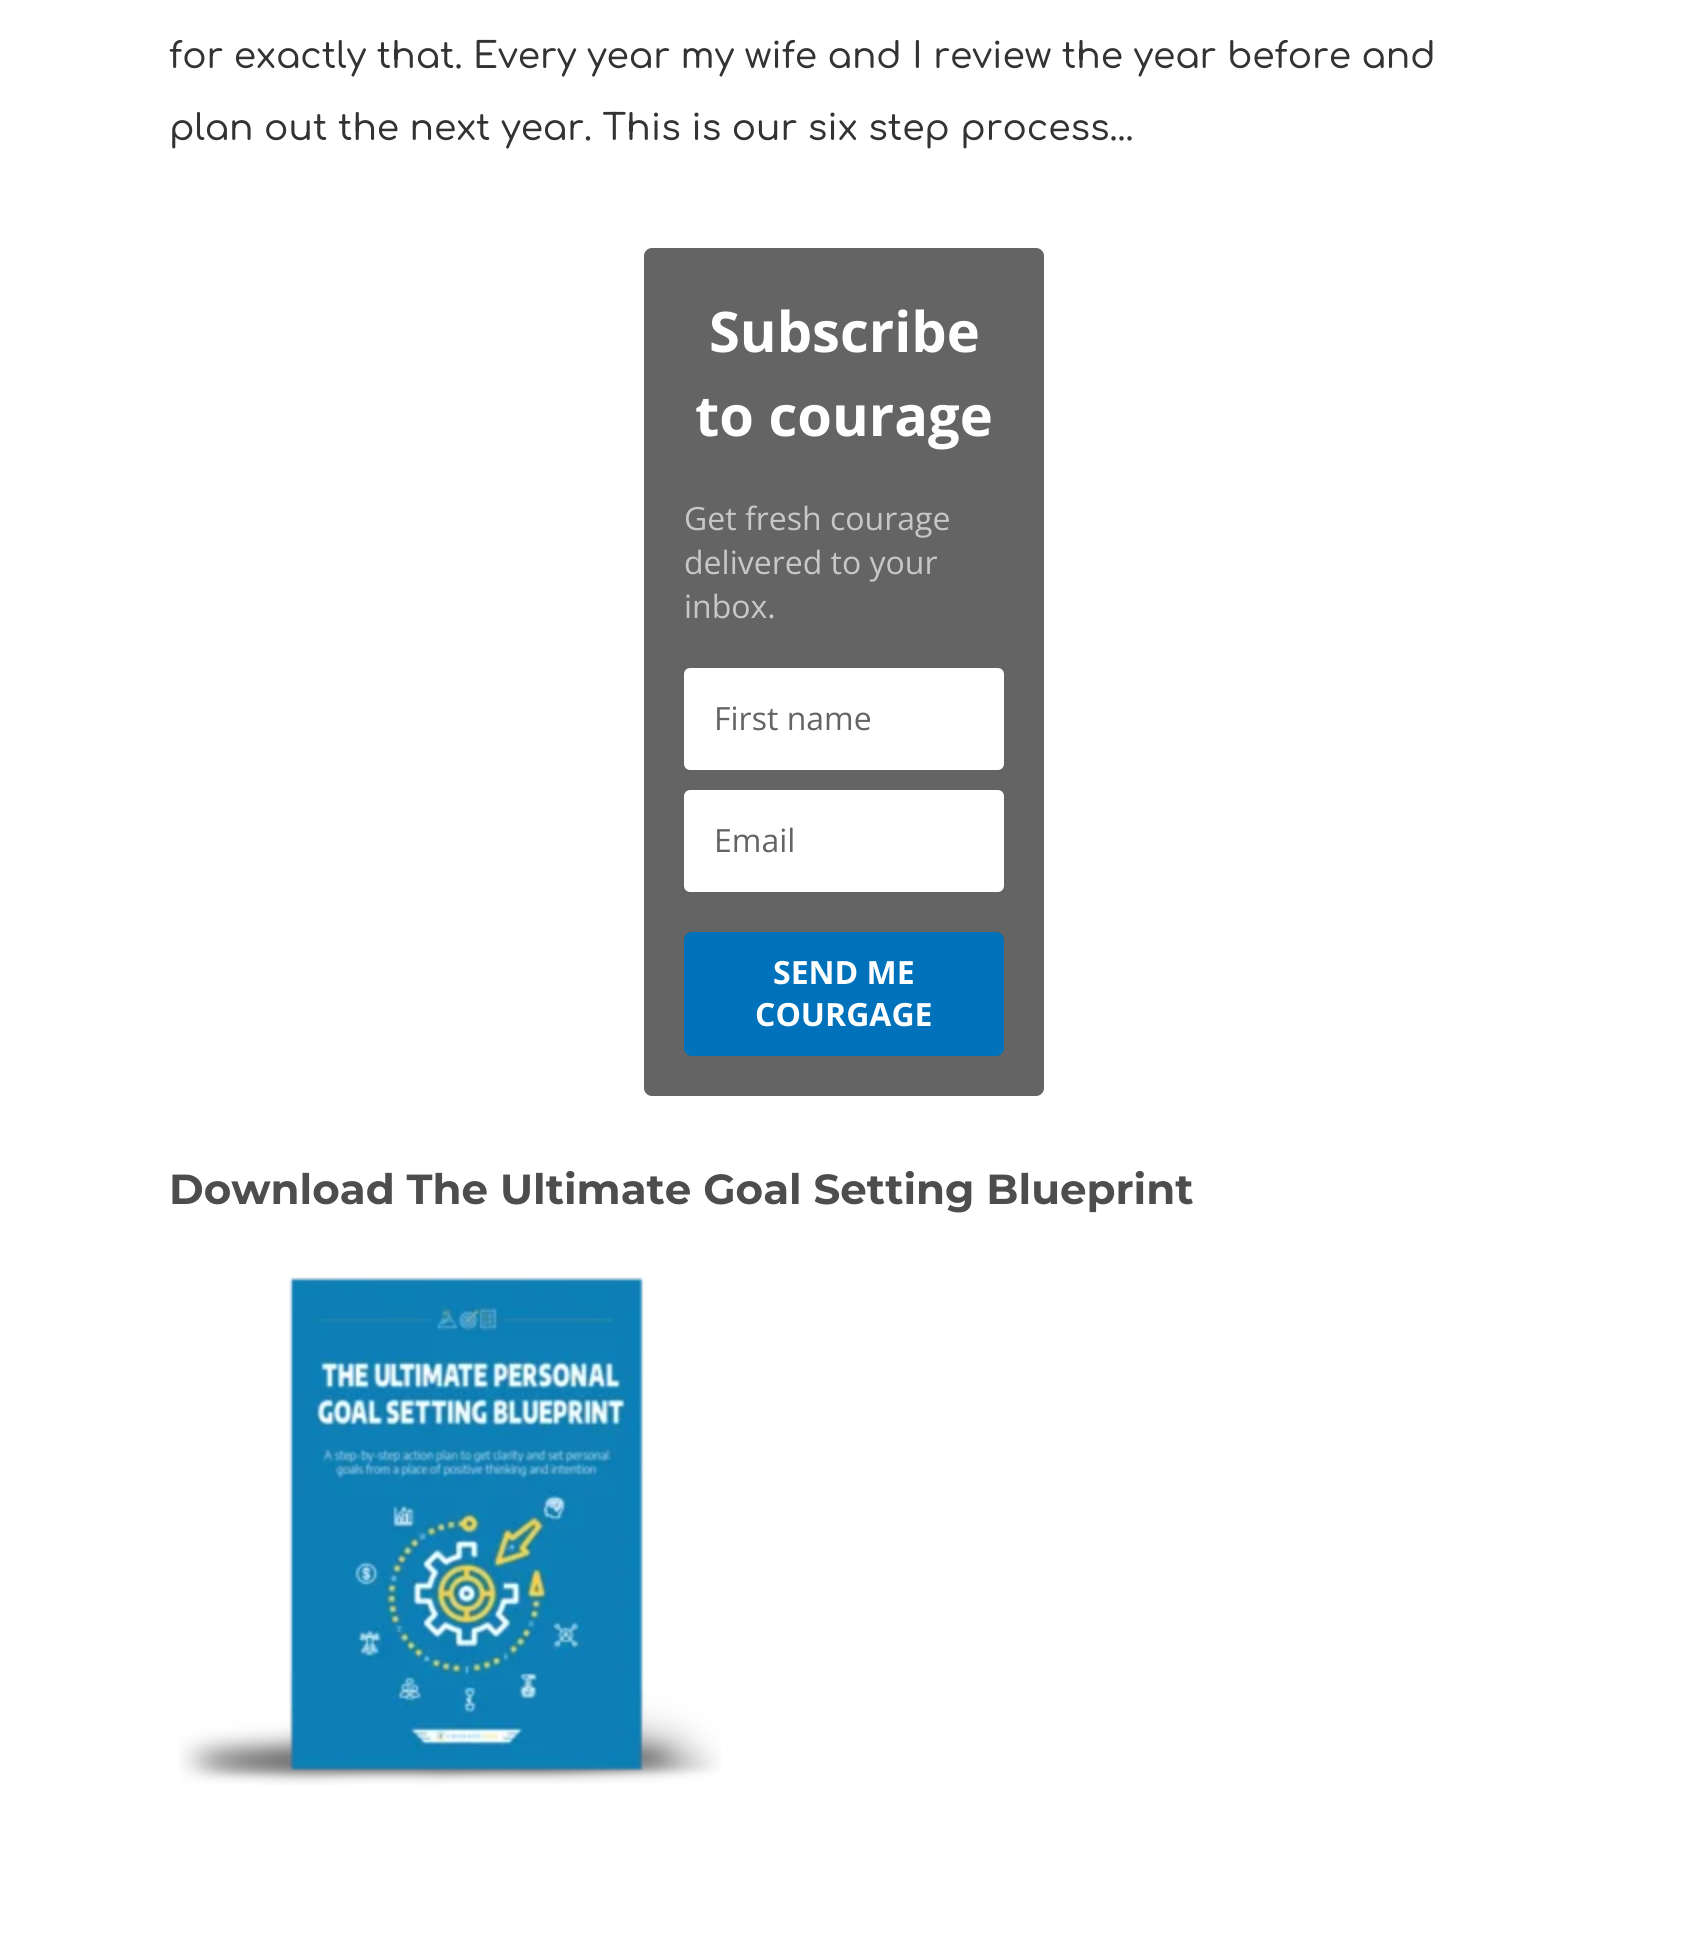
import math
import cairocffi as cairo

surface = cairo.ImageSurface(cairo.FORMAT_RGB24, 1688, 1947)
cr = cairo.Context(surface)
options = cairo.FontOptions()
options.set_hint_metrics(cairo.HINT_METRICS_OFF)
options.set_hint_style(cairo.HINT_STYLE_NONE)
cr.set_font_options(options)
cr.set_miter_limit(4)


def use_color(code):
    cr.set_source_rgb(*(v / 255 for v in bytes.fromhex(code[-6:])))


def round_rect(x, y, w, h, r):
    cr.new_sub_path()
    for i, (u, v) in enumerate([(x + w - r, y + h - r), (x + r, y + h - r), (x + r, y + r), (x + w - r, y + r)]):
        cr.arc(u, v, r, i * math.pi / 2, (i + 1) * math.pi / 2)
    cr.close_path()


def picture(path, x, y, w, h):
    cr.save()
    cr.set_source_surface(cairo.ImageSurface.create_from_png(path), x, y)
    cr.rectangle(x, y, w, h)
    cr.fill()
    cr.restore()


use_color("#ffffff")
cr.paint()
cr.select_font_face("Comfortaa Medium")
cr.set_font_size(36)
use_color("#333333")
cr.move_to(169, 68)
cr.show_text("for exactly that. Every year my wife and I review the year before and")
cr.move_to(169, 140)
cr.show_text("plan out the next year. This is our six step process...")
use_color("#646464")
round_rect(644, 248, 400, 848, 8)
cr.fill()
cr.select_font_face("Open Sans", cairo.FONT_SLANT_NORMAL, cairo.FONT_WEIGHT_BOLD)
cr.set_font_size(56)
use_color("#ffffff")
cr.move_to(709, 352)
cr.show_text("Subscribe")
cr.move_to(695, 436)
cr.show_text("to courage")
cr.select_font_face("Open Sans")
cr.set_font_size(32)
use_color("#c7c7c7")
cr.move_to(684, 530)
cr.show_text("Get fresh courage")
cr.move_to(684, 574)
cr.show_text("delivered to your")
cr.move_to(684, 618)
cr.show_text("inbox.")
use_color("#ffffff")
round_rect(689, 673, 310, 92, 1)
cr.fill_preserve()
cr.set_line_width(10)
cr.stroke()
use_color("#646464")
cr.move_to(714, 730)
cr.show_text("First name")
use_color("#ffffff")
round_rect(689, 795, 310, 92, 1)
cr.fill_preserve()
cr.stroke()
use_color("#646464")
cr.move_to(714, 852)
cr.show_text("Email")
use_color("#0072bc")
round_rect(684, 932, 320, 124, 8)
cr.fill()
cr.select_font_face("Open Sans", cairo.FONT_SLANT_NORMAL, cairo.FONT_WEIGHT_BOLD)
use_color("#ffffff")
cr.move_to(773, 984)
cr.show_text("SEND ME")
cr.move_to(755, 1026)
cr.show_text("COURGAGE")
cr.select_font_face("Montserrat", cairo.FONT_SLANT_NORMAL, cairo.FONT_WEIGHT_BOLD)
cr.set_font_size(42)
use_color("#4d4d4d")
cr.move_to(169, 1204)
cr.show_text("Download The Ultimate Goal Setting Blueprint")
picture("img1.png", 179, 1277, 542, 508)
surface.write_to_png("result.png")
